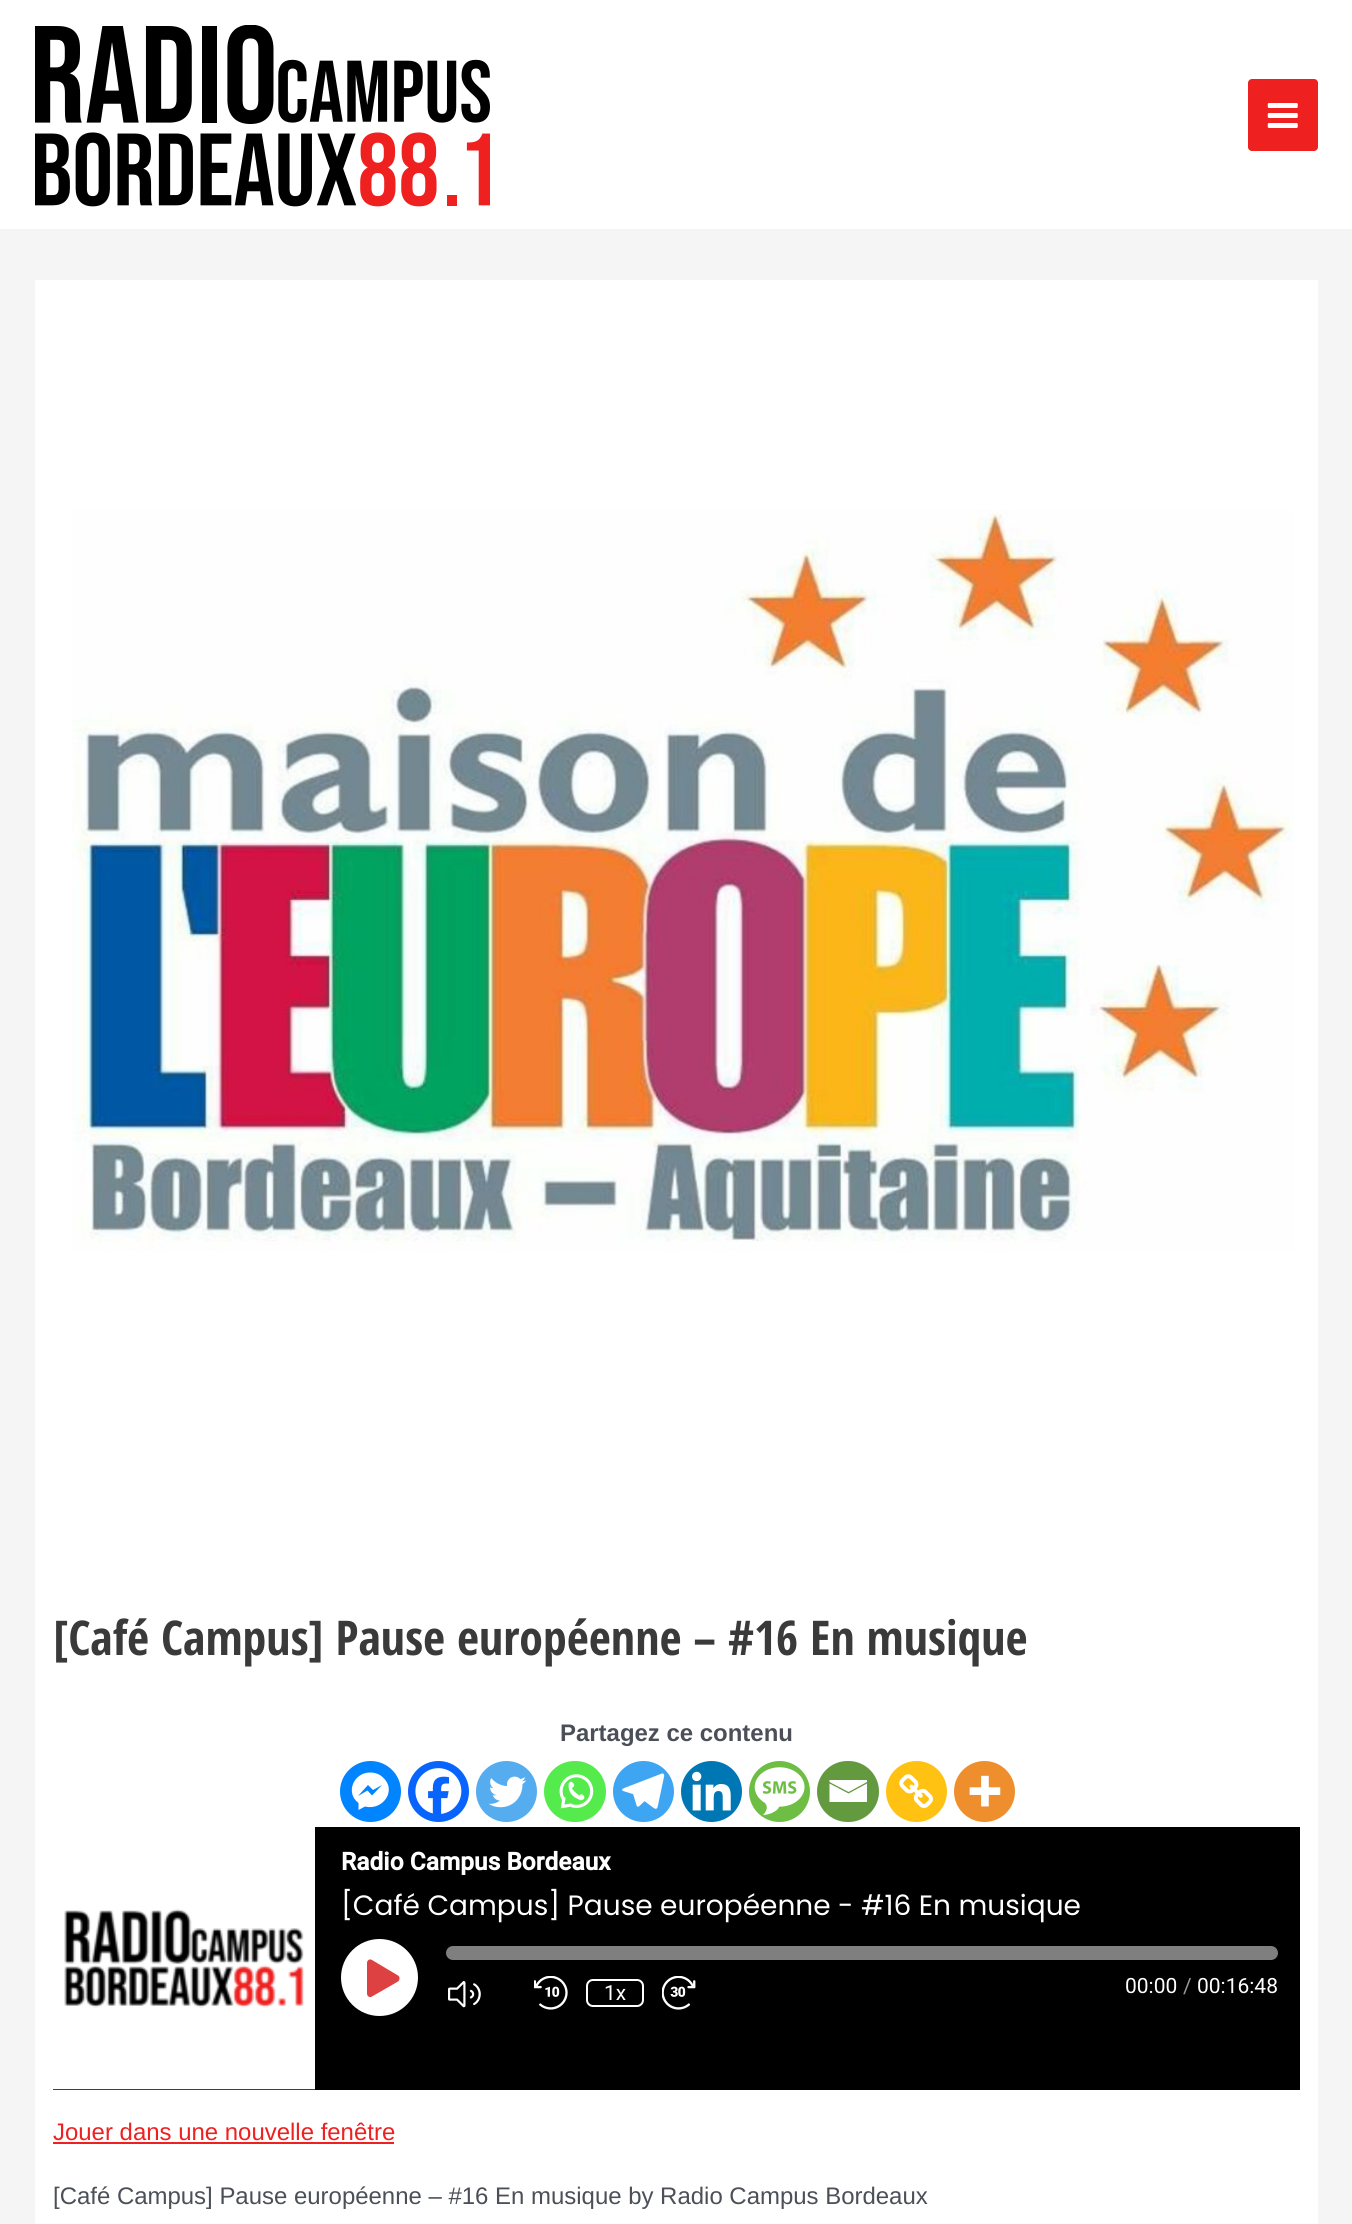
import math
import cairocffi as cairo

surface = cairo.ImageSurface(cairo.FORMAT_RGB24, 1352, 2224)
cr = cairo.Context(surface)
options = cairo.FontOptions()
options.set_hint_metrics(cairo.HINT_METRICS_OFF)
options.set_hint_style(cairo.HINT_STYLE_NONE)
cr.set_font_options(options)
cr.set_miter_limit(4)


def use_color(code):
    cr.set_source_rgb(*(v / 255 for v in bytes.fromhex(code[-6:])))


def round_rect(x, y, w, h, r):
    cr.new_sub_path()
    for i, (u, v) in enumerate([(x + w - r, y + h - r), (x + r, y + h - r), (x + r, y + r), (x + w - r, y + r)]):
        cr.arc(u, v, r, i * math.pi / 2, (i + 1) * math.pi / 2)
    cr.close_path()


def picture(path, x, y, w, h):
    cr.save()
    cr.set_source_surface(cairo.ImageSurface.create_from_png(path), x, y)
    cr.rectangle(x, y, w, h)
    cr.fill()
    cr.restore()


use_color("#f5f5f5")
cr.paint()
use_color("#ffffff")
cr.rectangle(0, 0, 1352, 229)
cr.fill()
use_color("#f2f5f7")
cr.rectangle(0, 229, 1352, 2)
cr.fill()
picture("img1.png", 35, 25, 455, 182)
use_color("#ee2020")
round_rect(1248, 79, 70, 72, 4)
cr.fill()
picture("img2.png", 1267, 103, 31, 25)
use_color("#ffffff")
cr.rectangle(35, 280, 1283, 1944)
cr.fill()
picture("img3.png", 72, 510, 1222, 741)
cr.select_font_face("Open Sans Condensed", cairo.FONT_SLANT_NORMAL, cairo.FONT_WEIGHT_BOLD)
cr.set_font_size(47.9)
use_color("#3a3a3a")
cr.move_to(53, 1655)
cr.show_text("[Café Campus] Pause européenne – #16 En musique")
cr.select_font_face("Liberation Sans", cairo.FONT_SLANT_NORMAL, cairo.FONT_WEIGHT_BOLD)
cr.set_font_size(23.95)
use_color("#4b4f58")
cr.move_to(560, 1741)
cr.show_text("Partagez ce contenu")
use_color("#0084ff")
cr.new_path()
cr.arc(370.5, 1791.5, 30.5, 0, 2 * math.pi)
cr.fill()
use_color("#ffffff")
cr.new_path()
cr.move_to(370, 1772.5)
cr.curve_to(353.5, 1772.5, 345, 1793, 358.5, 1803)
cr.line_to(358.5, 1810)
cr.line_to(365, 1806.5)
cr.curve_to(382.5, 1811, 397.5, 1790.5, 383, 1777.5)
cr.curve_to(379.5, 1774, 375, 1772.5, 370, 1772.5)
cr.close_path()
cr.move_to(372, 1795.5)
cr.line_to(367.5, 1790.5)
cr.line_to(358, 1796)
cr.line_to(368, 1785)
cr.line_to(373, 1790)
cr.line_to(382, 1785)
cr.close_path()
cr.fill()
use_color("#0765fe")
cr.arc(438.5, 1791.5, 30.5, 0, 2 * math.pi)
cr.fill()
picture("img4.png", 415, 1768, 47, 46)
use_color("#55acee")
cr.arc(506.5, 1791.5, 30.5, 0, 2 * math.pi)
cr.fill()
picture("img5.png", 488, 1776, 39, 32)
use_color("#55eb4c")
round_rect(544, 1761, 62, 61, 30.5)
cr.fill()
picture("img6.png", 559, 1774, 35, 35)
use_color("#3da5f1")
cr.arc(643.5, 1791.5, 30.5, 0, 2 * math.pi)
cr.fill()
picture("img7.png", 622, 1773, 43, 36)
use_color("#0077b5")
cr.arc(711.5, 1791.5, 30.5, 0, 2 * math.pi)
cr.fill()
picture("img8.png", 692, 1771, 39, 40)
use_color("#6ebe45")
cr.arc(779.5, 1791.5, 30.5, 0, 2 * math.pi)
cr.fill()
picture("img9.png", 754, 1767, 51, 48)
use_color("#649a3f")
round_rect(817, 1761, 62, 61, 30.5)
cr.fill()
use_color("#ffffff")
cr.new_path()
cr.move_to(828, 1780)
cr.line_to(867, 1780)
cr.line_to(867, 1782)
cr.line_to(848.5, 1792)
cr.line_to(829.5, 1782)
cr.line_to(829.5, 1780)
cr.move_to(829.5, 1783.5)
cr.line_to(848.5, 1793.5)
cr.line_to(867, 1783.5)
cr.line_to(867, 1802)
cr.line_to(829.5, 1802)
cr.line_to(829.5, 1783.5)
cr.fill()
use_color("#ffc112")
cr.arc(916.5, 1791.5, 30.5, 0, 2 * math.pi)
cr.fill()
picture("img10.png", 899, 1774, 34, 34)
use_color("#ee8e2d")
cr.arc(984.5, 1791.5, 30.5, 0, 2 * math.pi)
cr.fill()
picture("img11.png", 969, 1775, 32, 32)
use_color("#000000")
cr.rectangle(53, 1827, 1247, 263)
cr.fill()
picture("img12.png", 53, 1827, 262, 263)
cr.select_font_face("Roboto", cairo.FONT_SLANT_NORMAL, cairo.FONT_WEIGHT_BOLD)
cr.set_font_size(24.5)
use_color("#ffffff")
cr.move_to(341, 1870)
cr.show_text("Radio Campus Bordeaux")
cr.select_font_face("Poppins")
cr.set_font_size(28)
cr.move_to(341, 1915)
cr.show_text("[Café Campus] Pause européenne - #16 En musique")
cr.new_path()
cr.arc(379.5, 1977.5, 38.5, 0, 2 * math.pi)
cr.fill()
use_color("#dd4142")
cr.new_path()
cr.move_to(398, 1975.5)
cr.line_to(372, 1960)
cr.curve_to(370, 1958.5, 367, 1960, 367, 1963)
cr.line_to(367, 1993.5)
cr.curve_to(367, 1996.5, 370, 1998, 372, 1996.5)
cr.line_to(398, 1981.5)
cr.curve_to(400, 1980, 400, 1976.5, 398, 1975.5)
cr.close_path()
cr.fill()
use_color("#7f7f7f")
round_rect(446, 1946, 832, 14, 7)
cr.fill()
picture("img13.png", 448, 1981, 33, 27)
picture("img14.png", 534, 1976, 34, 34)
round_rect(587, 1980, 56, 26, 6)
use_color("#ffffff")
cr.stroke()
cr.select_font_face("Roboto")
cr.set_font_size(21)
cr.move_to(604, 2000)
cr.show_text("1x")
picture("img15.png", 662, 1976, 34, 34)
cr.move_to(1125, 1993)
cr.show_text("00:00")
use_color("#999999")
cr.move_to(1183, 1993)
cr.show_text("/")
use_color("#ffffff")
cr.move_to(1197, 1993)
cr.show_text("00:16:48")
cr.select_font_face("Liberation Sans")
cr.set_font_size(23.95)
use_color("#ee2020")
cr.move_to(53, 2140)
cr.show_text("Jouer dans une nouvelle fenêtre")
cr.rectangle(53, 2142, 341, 2)
cr.fill()
use_color("#4b4f58")
cr.move_to(53, 2204)
cr.show_text("[Café Campus] Pause européenne – #16 En musique by Radio Campus Bordeaux")
surface.write_to_png("result.png")
